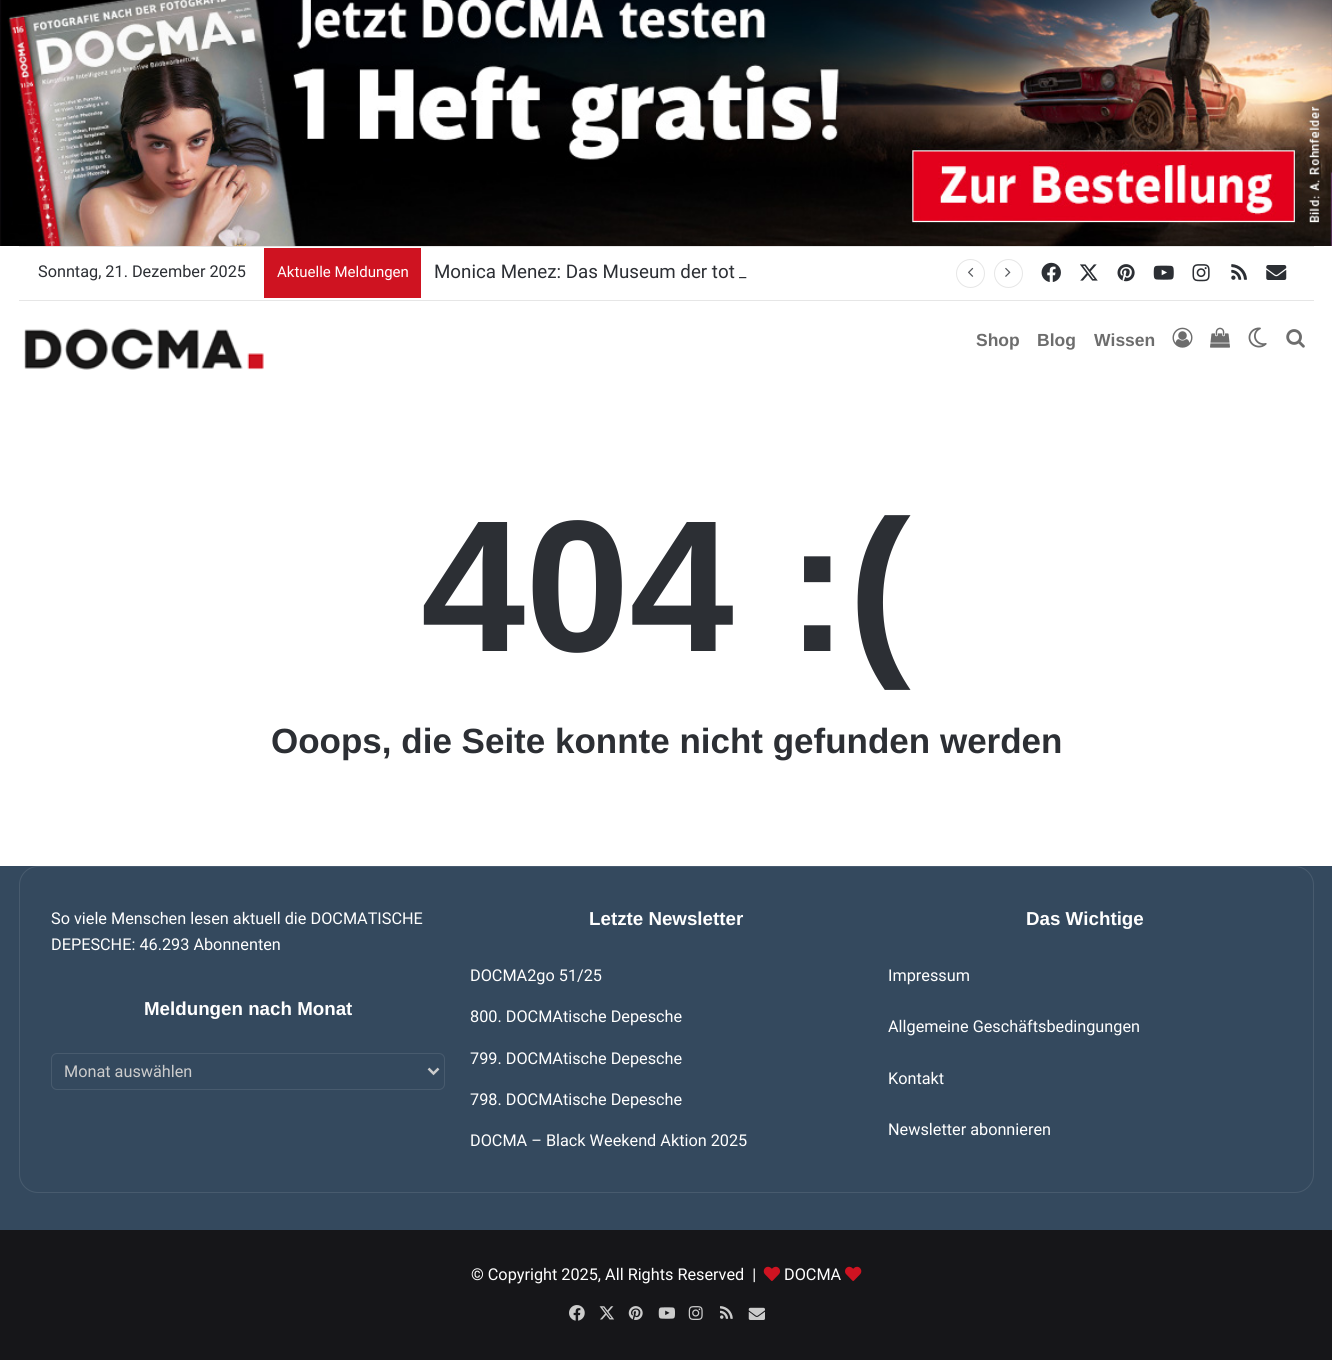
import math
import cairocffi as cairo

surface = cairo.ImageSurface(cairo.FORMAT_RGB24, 1332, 1360)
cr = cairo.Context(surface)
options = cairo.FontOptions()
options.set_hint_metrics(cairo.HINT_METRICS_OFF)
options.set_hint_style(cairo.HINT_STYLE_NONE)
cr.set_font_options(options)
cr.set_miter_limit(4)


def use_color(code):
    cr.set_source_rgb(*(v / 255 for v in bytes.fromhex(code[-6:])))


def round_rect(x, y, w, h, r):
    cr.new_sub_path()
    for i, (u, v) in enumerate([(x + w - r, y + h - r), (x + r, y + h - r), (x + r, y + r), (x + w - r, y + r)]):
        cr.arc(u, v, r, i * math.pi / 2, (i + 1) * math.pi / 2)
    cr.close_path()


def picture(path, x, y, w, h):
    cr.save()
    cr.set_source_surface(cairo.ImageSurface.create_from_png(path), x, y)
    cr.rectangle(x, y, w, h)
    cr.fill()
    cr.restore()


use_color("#ffffff")
cr.paint()
picture("img1.png", 0, 0, 1332, 246)
use_color("#e6e6e6")
cr.rectangle(19, 246, 1295, 1)
cr.fill()
cr.rectangle(19, 300, 1295, 1)
cr.fill()
cr.select_font_face("Roboto")
cr.set_font_size(16.25)
use_color("#2c2f34")
cr.move_to(38, 277)
cr.show_text("Sonntag, 21. Dezember 2025")
use_color("#cf1321")
cr.rectangle(264, 248, 157, 50)
cr.fill()
cr.set_font_size(15)
use_color("#ffffff")
cr.move_to(277, 277)
cr.show_text("Aktuelle Meldungen")
cr.set_font_size(18.75)
use_color("#2c2f34")
cr.move_to(434, 278)
cr.show_text("Monica Menez: Das Museum der tot")
cr.set_font_size(16.25)
cr.move_to(739, 277)
cr.show_text("_")
cr.new_path()
cr.arc(970.5, 273.5, 14, 0, 2 * math.pi)
use_color("#e6e6e6")
cr.set_line_width(1)
cr.stroke()
picture("img2.png", 968, 267, 6, 10)
cr.arc(1008.5, 273.5, 14, 0, 2 * math.pi)
cr.stroke()
picture("img3.png", 1005, 267, 6, 10)
picture("img4.png", 1041, 262, 20, 20)
picture("img5.png", 1080, 264, 18, 17)
picture("img6.png", 1117, 264, 18, 18)
picture("img7.png", 1153, 265, 21, 15)
picture("img8.png", 1192, 264, 18, 18)
picture("img9.png", 1231, 264, 16, 16)
picture("img10.png", 1266, 265, 21, 15)
picture("img11.png", 24, 328, 240, 42)
cr.select_font_face("Liberation Sans", cairo.FONT_SLANT_NORMAL, cairo.FONT_WEIGHT_BOLD)
cr.set_font_size(17.5)
use_color("#6d6d6d")
cr.move_to(976, 346)
cr.show_text("Shop")
cr.move_to(1037, 346)
cr.show_text("Blog")
cr.move_to(1094, 346)
cr.show_text("Wissen")
picture("img12.png", 1172, 327, 21, 21)
picture("img13.png", 1210, 327, 20, 21)
picture("img14.png", 1248, 327, 19, 21)
picture("img15.png", 1286, 329, 19, 19)
cr.set_font_size(187.5)
use_color("#2c2f34")
cr.move_to(421, 651)
cr.show_text("404 :(")
cr.set_font_size(35)
cr.move_to(271, 753)
cr.show_text("Ooops, die Seite konnte nicht gefunden werden")
use_color("#34495e")
cr.rectangle(0, 866, 1332, 364)
cr.fill()
round_rect(19.5, 866.5, 1294, 326, 18.5)
use_color("#485b6e")
cr.stroke()
cr.select_font_face("Roboto")
cr.set_font_size(16.25)
use_color("#ffffff")
cr.move_to(51, 924)
cr.show_text("So viele Menschen lesen aktuell die DOCMATISCHE")
cr.move_to(51, 950)
cr.show_text("DEPESCHE: 46.293 Abonnenten")
cr.select_font_face("Liberation Sans", cairo.FONT_SLANT_NORMAL, cairo.FONT_WEIGHT_BOLD)
cr.set_font_size(18.75)
cr.move_to(144, 1015)
cr.show_text("Meldungen nach Monat")
round_rect(51.5, 1053.5, 393, 36, 5.5)
use_color("#485b6e")
cr.stroke()
cr.new_path()
cr.move_to(428.5, 1068.5)
cr.line_to(433.5, 1073.5)
cr.line_to(438.5, 1068.5)
use_color("#cccccc")
cr.set_line_width(2.5)
cr.stroke()
cr.select_font_face("Roboto")
cr.set_font_size(16.25)
cr.move_to(64, 1077)
cr.show_text("Monat auswählen")
cr.select_font_face("Liberation Sans", cairo.FONT_SLANT_NORMAL, cairo.FONT_WEIGHT_BOLD)
cr.set_font_size(18.75)
use_color("#ffffff")
cr.move_to(589, 925)
cr.show_text("Letzte Newsletter")
cr.select_font_face("Roboto")
cr.set_font_size(16.25)
cr.move_to(470, 981)
cr.show_text("DOCMA2go 51/25")
cr.move_to(470, 1022)
cr.show_text("800. DOCMAtische Depesche")
cr.move_to(470, 1064)
cr.show_text("799. DOCMAtische Depesche")
cr.move_to(470, 1105)
cr.show_text("798. DOCMAtische Depesche")
cr.move_to(470, 1146)
cr.show_text("DOCMA – Black Weekend Aktion 2025")
cr.select_font_face("Liberation Sans", cairo.FONT_SLANT_NORMAL, cairo.FONT_WEIGHT_BOLD)
cr.set_font_size(18.75)
cr.move_to(1026, 925)
cr.show_text("Das Wichtige")
cr.select_font_face("Roboto")
cr.set_font_size(16.25)
cr.move_to(888, 981)
cr.show_text("Impressum")
cr.move_to(888, 1032)
cr.show_text("Allgemeine Geschäftsbedingungen")
cr.move_to(888, 1084)
cr.show_text("Kontakt")
cr.move_to(888, 1135)
cr.show_text("Newsletter abonnieren")
use_color("#161619")
cr.rectangle(0, 1230, 1332, 130)
cr.fill()
use_color("#ffffff")
cr.move_to(471, 1280)
cr.show_text("© Copyright 2025, All Rights Reserved  |")
picture("img16.png", 763, 1266, 17, 15)
cr.move_to(784, 1280)
cr.show_text("DOCMA")
picture("img17.png", 845, 1266, 17, 15)
picture("img18.png", 569, 1305, 16, 16)
picture("img19.png", 599, 1306, 16, 14)
picture("img20.png", 628, 1306, 15, 14)
picture("img21.png", 658, 1307, 17, 12)
picture("img22.png", 688, 1306, 15, 14)
picture("img23.png", 720, 1306, 13, 13)
picture("img24.png", 748, 1307, 17, 13)
surface.write_to_png("result.png")
